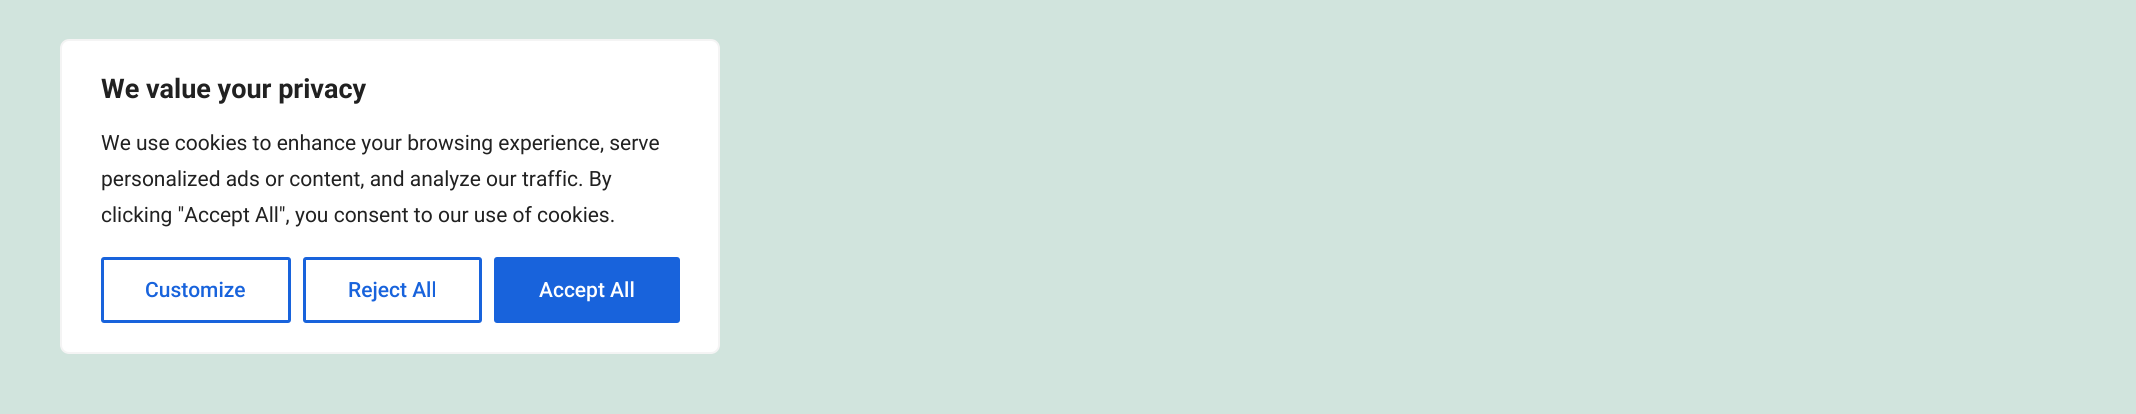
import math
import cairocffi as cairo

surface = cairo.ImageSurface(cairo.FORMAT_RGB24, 2136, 414)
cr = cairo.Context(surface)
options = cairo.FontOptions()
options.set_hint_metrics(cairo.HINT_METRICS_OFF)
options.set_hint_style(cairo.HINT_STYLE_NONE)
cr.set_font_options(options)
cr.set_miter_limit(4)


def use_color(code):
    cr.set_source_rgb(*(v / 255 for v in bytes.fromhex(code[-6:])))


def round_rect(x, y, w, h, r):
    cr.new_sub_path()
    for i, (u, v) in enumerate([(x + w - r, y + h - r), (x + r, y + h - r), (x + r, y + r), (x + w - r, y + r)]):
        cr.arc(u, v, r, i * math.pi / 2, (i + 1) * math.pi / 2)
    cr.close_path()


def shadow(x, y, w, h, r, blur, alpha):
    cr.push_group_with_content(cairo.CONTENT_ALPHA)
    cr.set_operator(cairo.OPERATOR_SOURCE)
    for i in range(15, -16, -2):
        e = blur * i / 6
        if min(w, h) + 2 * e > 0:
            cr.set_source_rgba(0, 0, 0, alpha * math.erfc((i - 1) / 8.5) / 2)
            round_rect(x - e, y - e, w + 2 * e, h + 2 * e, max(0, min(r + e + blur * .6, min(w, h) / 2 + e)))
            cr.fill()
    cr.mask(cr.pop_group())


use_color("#d1e4dd")
cr.paint()
cr.save()
round_rect(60, 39, 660, 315, 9)
cr.clip()
use_color("#acabab")
shadow(60, 38, 660, 315, 9, 7.5, 0.3)
cr.restore()
use_color("#ffffff")
round_rect(61, 40, 658, 313, 8)
cr.fill_preserve()
use_color("#f4f4f4")
cr.stroke()
cr.select_font_face("Roboto", cairo.FONT_SLANT_NORMAL, cairo.FONT_WEIGHT_BOLD)
cr.set_font_size(27)
use_color("#212121")
cr.move_to(101, 98)
cr.show_text("We value your privacy")
cr.select_font_face("Roboto")
cr.set_font_size(21)
cr.move_to(101, 150)
cr.show_text("We use cookies to enhance your browsing experience, serve")
cr.move_to(101, 186)
cr.show_text("personalized ads or content, and analyze our traffic. By")
cr.move_to(101, 222)
cr.show_text("clicking \"Accept All\", you consent to our use of cookies.")
round_rect(102.5, 258.5, 187, 63, 1.5)
use_color("#1863dc")
cr.set_line_width(3)
cr.stroke()
cr.select_font_face("Roboto Medium")
cr.move_to(145, 297)
cr.show_text("Customize")
round_rect(304.5, 258.5, 176, 63, 1.5)
cr.stroke()
cr.move_to(348, 297)
cr.show_text("Reject All")
round_rect(495.5, 258.5, 183, 63, 1.5)
cr.fill_preserve()
cr.stroke()
use_color("#ffffff")
cr.move_to(539, 297)
cr.show_text("Accept All")
surface.write_to_png("result.png")
